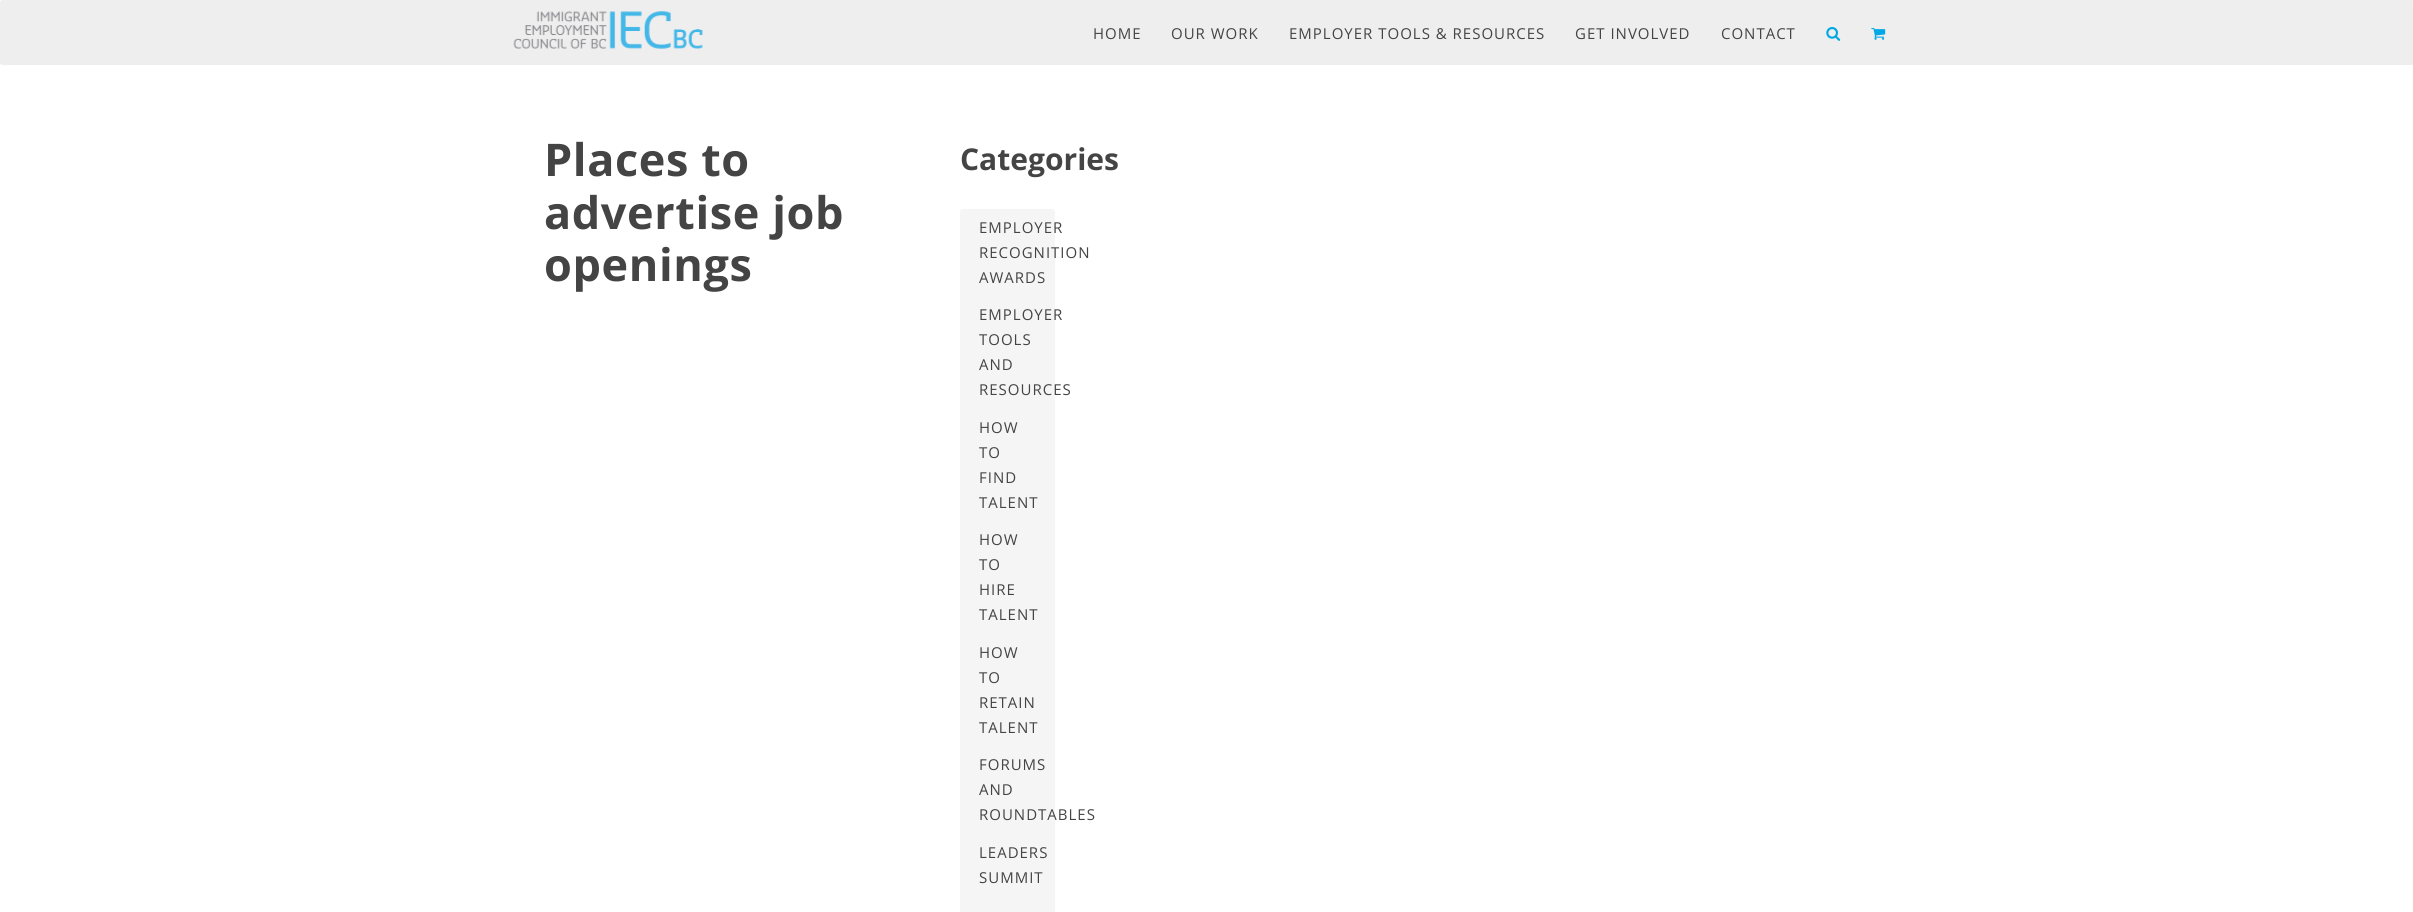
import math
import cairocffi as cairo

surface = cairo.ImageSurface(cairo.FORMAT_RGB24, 2413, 912)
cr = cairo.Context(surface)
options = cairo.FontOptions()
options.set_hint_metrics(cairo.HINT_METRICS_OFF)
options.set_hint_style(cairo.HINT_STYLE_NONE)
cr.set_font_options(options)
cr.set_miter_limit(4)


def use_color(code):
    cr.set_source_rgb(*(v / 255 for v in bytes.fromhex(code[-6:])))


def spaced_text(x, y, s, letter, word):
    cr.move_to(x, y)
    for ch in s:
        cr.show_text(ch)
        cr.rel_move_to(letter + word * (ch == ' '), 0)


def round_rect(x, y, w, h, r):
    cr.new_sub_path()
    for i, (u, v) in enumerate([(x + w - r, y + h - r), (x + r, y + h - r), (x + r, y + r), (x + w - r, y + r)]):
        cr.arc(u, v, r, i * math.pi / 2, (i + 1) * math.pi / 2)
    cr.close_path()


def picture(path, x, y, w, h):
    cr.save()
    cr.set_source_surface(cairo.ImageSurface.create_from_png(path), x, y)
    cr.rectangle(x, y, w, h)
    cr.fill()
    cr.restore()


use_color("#ffffff")
cr.paint()
use_color("#eeeeee")
round_rect(0, 0, 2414, 65, 2.5)
cr.fill()
picture("img1.png", 513, 11, 190, 38)
cr.select_font_face("Open Sans")
cr.set_font_size(15)
use_color("#444444")
spaced_text(1093, 39, "HOME", 1, 0)
spaced_text(1171, 39, "OUR WORK", 1, 0)
spaced_text(1289, 39, "EMPLOYER TOOLS & RESOURCES", 1, 0)
spaced_text(1575, 39, "GET INVOLVED", 1, 0)
spaced_text(1721, 39, "CONTACT", 1, 0)
picture("img2.png", 1826, 27, 15, 14)
picture("img3.png", 1871, 28, 15, 12)
cr.select_font_face("Open Sans", cairo.FONT_SLANT_NORMAL, cairo.FONT_WEIGHT_BOLD)
cr.set_font_size(45)
spaced_text(544, 176, "Places to", 0.6, 0)
spaced_text(544, 229, "advertise job", 0.6, 0)
spaced_text(544, 281, "openings", 0.6, 0)
cr.set_font_size(30)
cr.move_to(960, 170)
cr.show_text("Categories")
use_color("#f5f5f5")
round_rect(960, 209, 95, 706, 2.5)
cr.fill()
cr.select_font_face("Open Sans")
cr.set_font_size(15)
use_color("#444444")
spaced_text(979, 233, "EMPLOYER", 1, 0)
spaced_text(979, 258, "RECOGNITION", 1, 0)
spaced_text(979, 283, "AWARDS", 1, 0)
spaced_text(979, 320, "EMPLOYER", 1, 0)
spaced_text(979, 345, "TOOLS", 1, 0)
spaced_text(979, 370, "AND", 1, 0)
spaced_text(979, 395, "RESOURCES", 1, 0)
spaced_text(979, 433, "HOW", 1, 0)
spaced_text(979, 458, "TO", 1, 0)
spaced_text(979, 483, "FIND", 1, 0)
spaced_text(979, 508, "TALENT", 1, 0)
spaced_text(979, 545, "HOW", 1, 0)
spaced_text(979, 570, "TO", 1, 0)
spaced_text(979, 595, "HIRE", 1, 0)
spaced_text(979, 620, "TALENT", 1, 0)
spaced_text(979, 658, "HOW", 1, 0)
spaced_text(979, 683, "TO", 1, 0)
spaced_text(979, 708, "RETAIN", 1, 0)
spaced_text(979, 733, "TALENT", 1, 0)
spaced_text(979, 770, "FORUMS", 1, 0)
spaced_text(979, 795, "AND", 1, 0)
spaced_text(979, 820, "ROUNDTABLES", 1, 0)
spaced_text(979, 858, "LEADERS", 1, 0)
spaced_text(979, 883, "SUMMIT", 1, 0)
surface.write_to_png("result.png")
